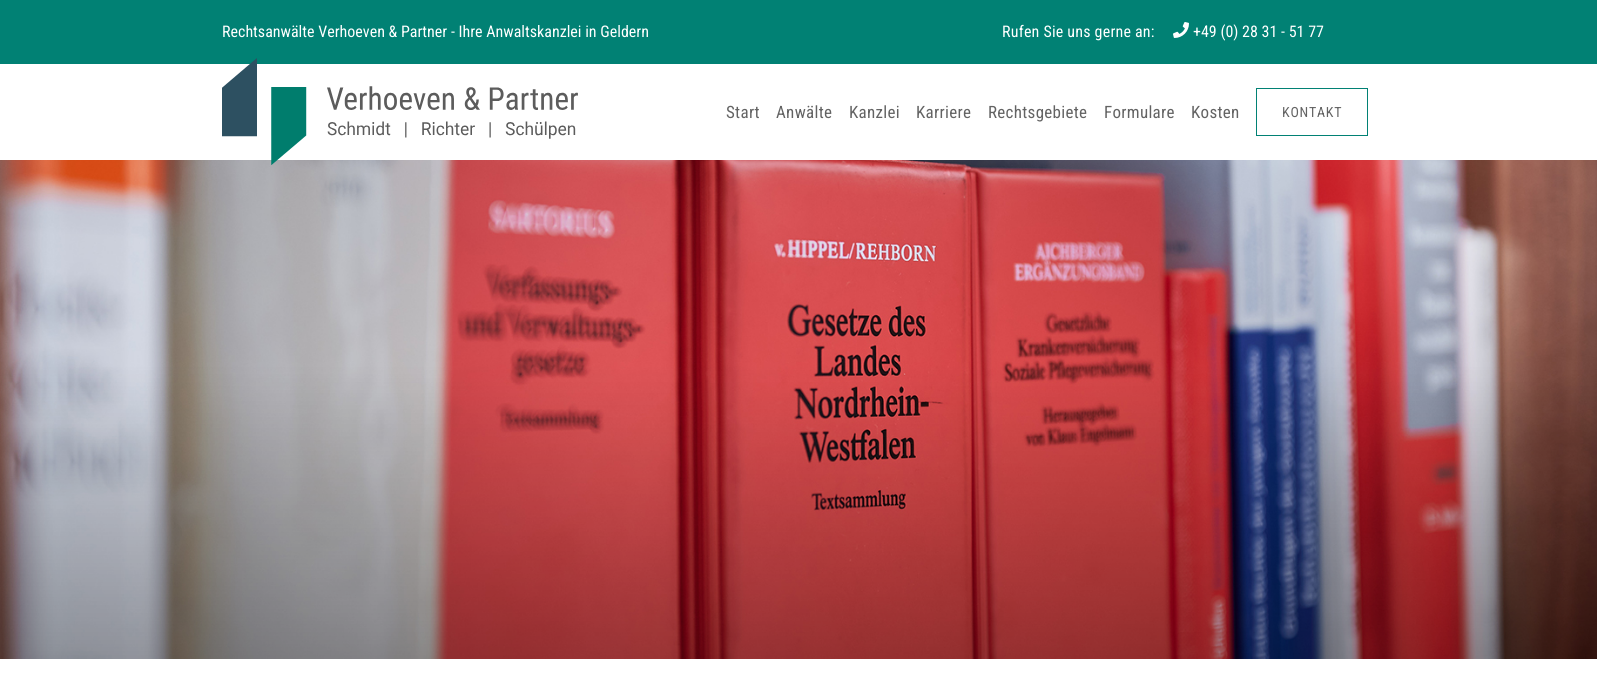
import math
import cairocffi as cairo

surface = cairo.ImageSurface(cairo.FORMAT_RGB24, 1597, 675)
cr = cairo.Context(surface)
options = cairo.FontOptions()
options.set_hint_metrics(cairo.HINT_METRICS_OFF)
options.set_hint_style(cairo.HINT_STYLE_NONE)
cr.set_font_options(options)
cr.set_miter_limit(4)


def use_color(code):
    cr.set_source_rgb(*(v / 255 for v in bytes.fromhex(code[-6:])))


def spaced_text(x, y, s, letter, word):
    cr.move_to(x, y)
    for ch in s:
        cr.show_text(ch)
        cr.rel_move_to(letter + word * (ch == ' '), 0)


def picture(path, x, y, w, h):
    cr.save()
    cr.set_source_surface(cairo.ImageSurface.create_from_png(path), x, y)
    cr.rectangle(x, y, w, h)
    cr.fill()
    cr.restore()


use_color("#ffffff")
cr.paint()
use_color("#018174")
cr.rectangle(0, 0, 1597, 64)
cr.fill()
cr.select_font_face("Roboto Condensed")
cr.set_font_size(16)
use_color("#ffffff")
cr.move_to(222, 37)
cr.show_text("Rechtsanwälte Verhoeven & Partner - Ihre Anwaltskanzlei in Geldern")
spaced_text(1002, 37, "Rufen Sie uns gerne an:", 0.2, 0)
picture("img1.png", 1173, 22, 16, 16)
cr.move_to(1193, 37)
cr.show_text("+49 (0) 28 31 - 51 77")
picture("img3.png", 0, 160, 1597, 499)
picture("img2.png", 222, 58, 356, 107)
cr.set_font_size(17)
use_color("#636363")
spaced_text(726, 118, "Start", 0.3, 0)
spaced_text(776, 118, "Anwälte", 0.3, 0)
spaced_text(849, 118, "Kanzlei", 0.3, 0)
spaced_text(916, 118, "Karriere", 0.3, 0)
spaced_text(988, 118, "Rechtsgebiete", 0.3, 0)
spaced_text(1104, 118, "Formulare", 0.3, 0)
spaced_text(1191, 118, "Kosten", 0.3, 0)
cr.rectangle(1256.5, 88.5, 111, 47)
use_color("#018174")
cr.set_line_width(1)
cr.stroke()
cr.set_font_size(14)
use_color("#636363")
spaced_text(1282, 117, "KONTAKT", 0.75, 0)
surface.write_to_png("result.png")
